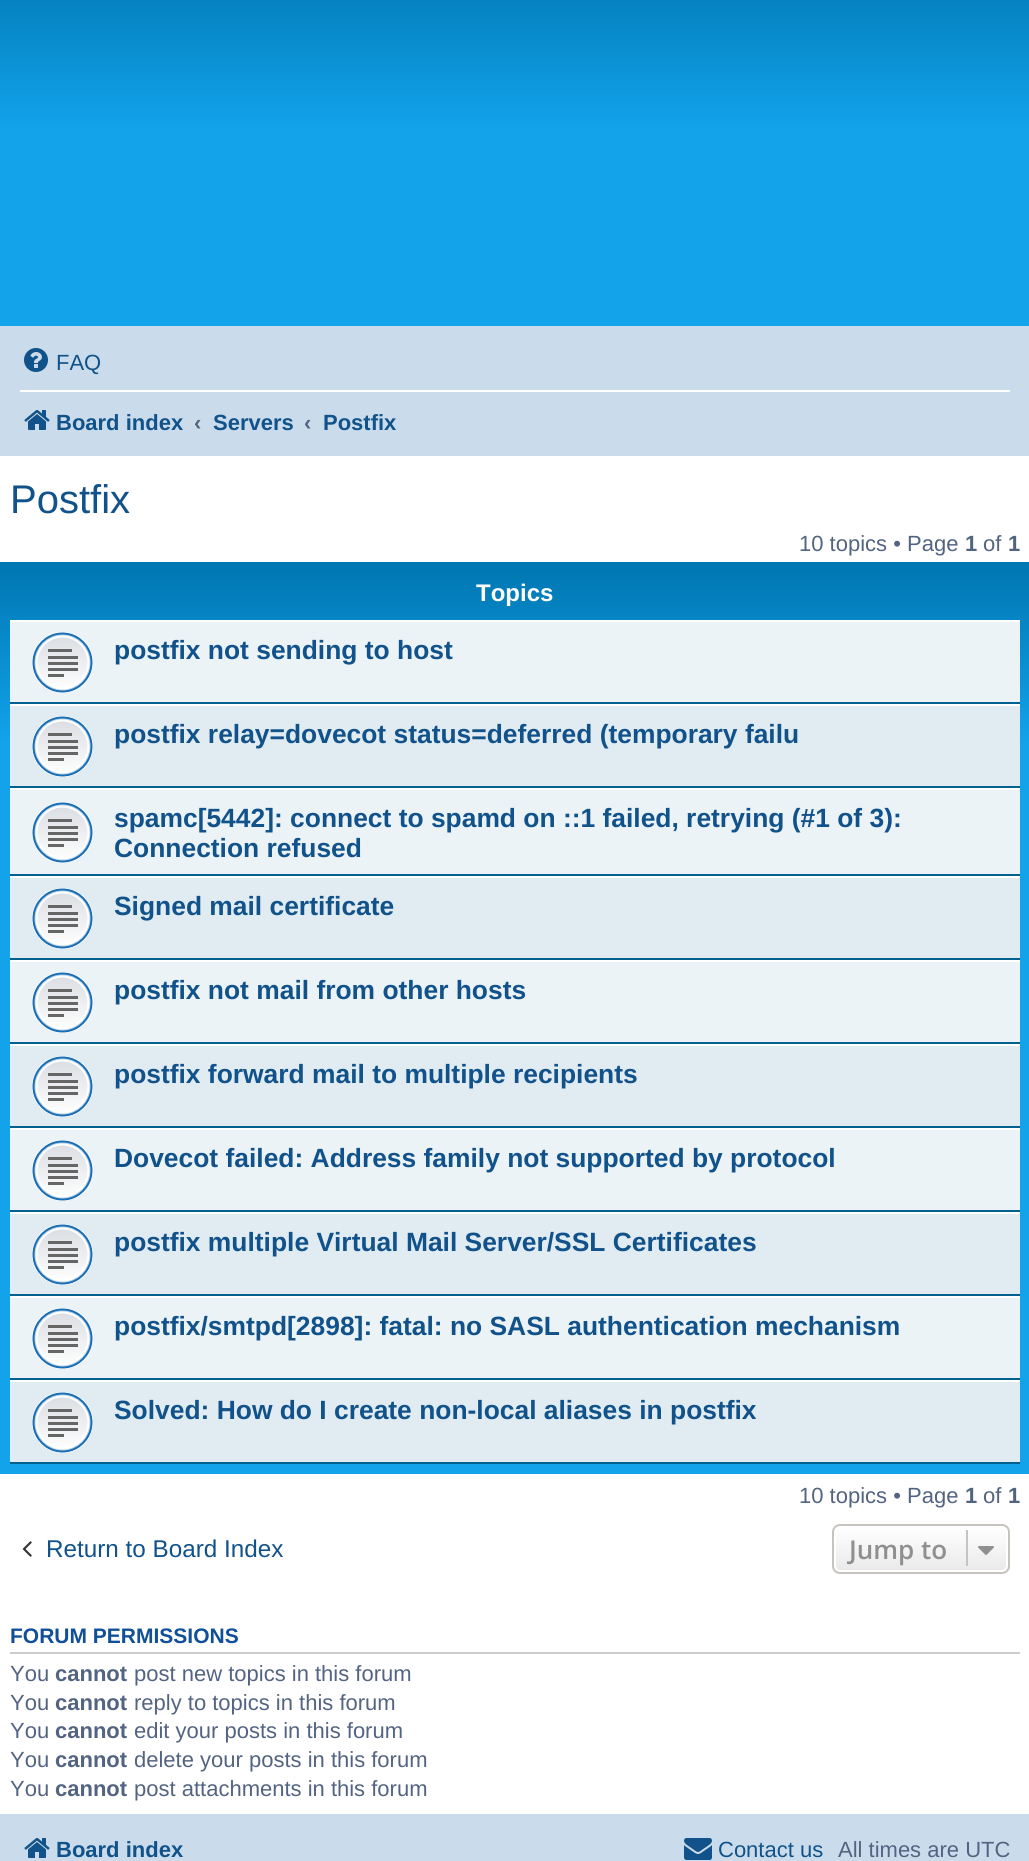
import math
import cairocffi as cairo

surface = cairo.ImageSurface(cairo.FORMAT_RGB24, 1029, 1861)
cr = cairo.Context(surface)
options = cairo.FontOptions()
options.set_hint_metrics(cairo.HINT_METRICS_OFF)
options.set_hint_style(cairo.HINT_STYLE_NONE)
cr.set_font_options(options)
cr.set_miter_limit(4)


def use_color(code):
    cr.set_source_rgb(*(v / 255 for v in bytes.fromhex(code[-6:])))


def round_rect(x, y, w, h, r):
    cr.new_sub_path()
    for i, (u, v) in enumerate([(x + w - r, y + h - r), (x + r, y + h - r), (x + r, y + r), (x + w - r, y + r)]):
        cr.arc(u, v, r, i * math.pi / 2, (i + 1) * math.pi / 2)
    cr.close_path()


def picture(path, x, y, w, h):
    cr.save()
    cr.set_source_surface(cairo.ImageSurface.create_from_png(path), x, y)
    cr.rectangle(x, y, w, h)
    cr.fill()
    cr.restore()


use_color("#ffffff")
cr.paint()
gradient = cairo.LinearGradient(515, -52, 515, 328)
gradient.add_color_stop_rgba(0, 0.416, 0.808, 1, 1)
gradient.add_color_stop_rgba(0.01, 0, 0.463, 0.694, 1)
gradient.add_color_stop_rgba(0.48, 0.071, 0.639, 0.922, 1)
gradient.add_color_stop_rgba(1, 0.071, 0.639, 0.922, 1)
cr.set_source(gradient)
cr.rectangle(0, 0, 1029, 326)
cr.fill()
use_color("#cadceb")
cr.rectangle(0, 326, 1029, 130)
cr.fill()
picture("img1.png", 24, 348, 24, 24)
cr.select_font_face("Liberation Sans")
cr.set_font_size(22)
use_color("#105289")
cr.move_to(56, 370)
cr.show_text("FAQ")
use_color("#ffffff")
cr.rectangle(20, 390, 990, 2)
cr.fill()
picture("img2.png", 24, 410, 26, 20)
cr.select_font_face("Liberation Sans", cairo.FONT_SLANT_NORMAL, cairo.FONT_WEIGHT_BOLD)
use_color("#105289")
cr.move_to(56, 430)
cr.show_text("Board index")
use_color("#536482")
cr.move_to(194, 430)
cr.show_text("‹")
use_color("#105289")
cr.move_to(213, 430)
cr.show_text("Servers")
use_color("#536482")
cr.move_to(304, 430)
cr.show_text("‹")
use_color("#105289")
cr.move_to(323, 430)
cr.show_text("Postfix")
cr.select_font_face("Liberation Sans")
cr.set_font_size(40)
cr.move_to(10, 513)
cr.show_text("Postfix")
cr.set_font_size(22)
use_color("#536482")
cr.move_to(799, 551)
cr.show_text("10 topics • Page")
cr.select_font_face("Liberation Sans", cairo.FONT_SLANT_NORMAL, cairo.FONT_WEIGHT_BOLD)
cr.move_to(965, 551)
cr.show_text("1")
cr.select_font_face("Liberation Sans")
cr.move_to(983, 551)
cr.show_text("of")
cr.select_font_face("Liberation Sans", cairo.FONT_SLANT_NORMAL, cairo.FONT_WEIGHT_BOLD)
cr.move_to(1008, 551)
cr.show_text("1")
gradient = cairo.LinearGradient(515, 562, 515, 1474)
gradient.add_color_stop_rgba(0, 0.416, 0.808, 1, 1)
gradient.add_color_stop_rgba(0, 0, 0.463, 0.694, 1)
gradient.add_color_stop_rgba(0.2, 0.071, 0.639, 0.922, 1)
gradient.add_color_stop_rgba(1, 0.071, 0.639, 0.922, 1)
cr.set_source(gradient)
cr.rectangle(0, 562, 1029, 912)
cr.fill()
cr.set_font_size(24)
use_color("#ffffff")
cr.move_to(476, 601)
cr.show_text("Topics")
use_color("#ecf3f7")
cr.rectangle(10, 622, 1010, 80)
cr.fill()
use_color("#ffffff")
cr.rectangle(10, 620, 1010, 2)
cr.fill()
use_color("#00608f")
cr.rectangle(10, 702, 1010, 2)
cr.fill()
picture("img3.png", 32, 632, 61, 61)
cr.set_font_size(26.4)
use_color("#105289")
cr.move_to(114, 659)
cr.show_text("postfix not sending to host")
use_color("#e1ebf2")
cr.rectangle(10, 706, 1010, 80)
cr.fill()
use_color("#ffffff")
cr.rectangle(10, 704, 1010, 2)
cr.fill()
use_color("#00608f")
cr.rectangle(10, 786, 1010, 2)
cr.fill()
picture("img4.png", 32, 716, 61, 61)
use_color("#105289")
cr.move_to(114, 743)
cr.show_text("postfix relay=dovecot status=deferred (temporary failu")
use_color("#ecf3f7")
cr.rectangle(10, 790, 1010, 84)
cr.fill()
use_color("#ffffff")
cr.rectangle(10, 788, 1010, 2)
cr.fill()
use_color("#00608f")
cr.rectangle(10, 874, 1010, 2)
cr.fill()
picture("img3.png", 32, 802, 61, 61)
use_color("#105289")
cr.move_to(114, 827)
cr.show_text("spamc[5442]: connect to spamd on ::1 failed, retrying (#1 of 3):")
cr.move_to(114, 857)
cr.show_text("Connection refused")
use_color("#e1ebf2")
cr.rectangle(10, 878, 1010, 80)
cr.fill()
use_color("#ffffff")
cr.rectangle(10, 876, 1010, 2)
cr.fill()
use_color("#00608f")
cr.rectangle(10, 958, 1010, 2)
cr.fill()
picture("img4.png", 32, 888, 61, 61)
use_color("#105289")
cr.move_to(114, 915)
cr.show_text("Signed mail certificate")
use_color("#ecf3f7")
cr.rectangle(10, 962, 1010, 80)
cr.fill()
use_color("#ffffff")
cr.rectangle(10, 960, 1010, 2)
cr.fill()
use_color("#00608f")
cr.rectangle(10, 1042, 1010, 2)
cr.fill()
picture("img3.png", 32, 972, 61, 61)
use_color("#105289")
cr.move_to(114, 999)
cr.show_text("postfix not mail from other hosts")
use_color("#e1ebf2")
cr.rectangle(10, 1046, 1010, 80)
cr.fill()
use_color("#ffffff")
cr.rectangle(10, 1044, 1010, 2)
cr.fill()
use_color("#00608f")
cr.rectangle(10, 1126, 1010, 2)
cr.fill()
picture("img4.png", 32, 1056, 61, 61)
use_color("#105289")
cr.move_to(114, 1083)
cr.show_text("postfix forward mail to multiple recipients")
use_color("#ecf3f7")
cr.rectangle(10, 1130, 1010, 80)
cr.fill()
use_color("#ffffff")
cr.rectangle(10, 1128, 1010, 2)
cr.fill()
use_color("#00608f")
cr.rectangle(10, 1210, 1010, 2)
cr.fill()
picture("img3.png", 32, 1140, 61, 61)
use_color("#105289")
cr.move_to(114, 1167)
cr.show_text("Dovecot failed: Address family not supported by protocol")
use_color("#e1ebf2")
cr.rectangle(10, 1214, 1010, 80)
cr.fill()
use_color("#ffffff")
cr.rectangle(10, 1212, 1010, 2)
cr.fill()
use_color("#00608f")
cr.rectangle(10, 1294, 1010, 2)
cr.fill()
picture("img4.png", 32, 1224, 61, 61)
use_color("#105289")
cr.move_to(114, 1251)
cr.show_text("postfix multiple Virtual Mail Server/SSL Certificates")
use_color("#ecf3f7")
cr.rectangle(10, 1298, 1010, 80)
cr.fill()
use_color("#ffffff")
cr.rectangle(10, 1296, 1010, 2)
cr.fill()
use_color("#00608f")
cr.rectangle(10, 1378, 1010, 2)
cr.fill()
picture("img3.png", 32, 1308, 61, 61)
use_color("#105289")
cr.move_to(114, 1335)
cr.show_text("postfix/smtpd[2898]: fatal: no SASL authentication mechanism")
use_color("#e1ebf2")
cr.rectangle(10, 1382, 1010, 80)
cr.fill()
use_color("#ffffff")
cr.rectangle(10, 1380, 1010, 2)
cr.fill()
use_color("#00608f")
cr.rectangle(10, 1462, 1010, 2)
cr.fill()
picture("img4.png", 32, 1392, 61, 61)
use_color("#105289")
cr.move_to(114, 1419)
cr.show_text("Solved: How do I create non-local aliases in postfix")
cr.select_font_face("Liberation Sans")
cr.set_font_size(22)
use_color("#536482")
cr.move_to(799, 1503)
cr.show_text("10 topics • Page")
cr.select_font_face("Liberation Sans", cairo.FONT_SLANT_NORMAL, cairo.FONT_WEIGHT_BOLD)
cr.move_to(965, 1503)
cr.show_text("1")
cr.select_font_face("Liberation Sans")
cr.move_to(983, 1503)
cr.show_text("of")
cr.select_font_face("Liberation Sans", cairo.FONT_SLANT_NORMAL, cairo.FONT_WEIGHT_BOLD)
cr.move_to(1008, 1503)
cr.show_text("1")
picture("img5.png", 22, 1541, 10, 16)
cr.select_font_face("Liberation Sans")
cr.set_font_size(24.25)
use_color("#105289")
cr.move_to(46, 1557)
cr.show_text("Return to Board Index")
cr.save()
round_rect(832, 1524, 178, 50, 8)
cr.clip()
gradient = cairo.LinearGradient(921, 1526, 921, 1572)
gradient.add_color_stop_rgba(0, 1, 1, 1, 1)
gradient.add_color_stop_rgba(1, 0.914, 0.914, 0.914, 1)
cr.set_source(gradient)
cr.rectangle(832, 1526, 178, 46)
cr.fill()
cr.restore()
round_rect(835, 1527, 172, 44, 5)
use_color("#ffffff")
cr.stroke()
round_rect(833, 1525, 176, 48, 7)
use_color("#c7c3bf")
cr.stroke()
cr.select_font_face("Open Sans SemiBold")
cr.set_font_size(26)
use_color("#8f8f8f")
cr.move_to(849, 1559)
cr.show_text("Jump to")
use_color("#c7c3bf")
cr.rectangle(966, 1530, 2, 36)
cr.fill()
picture("img6.png", 978, 1546, 16, 9)
use_color("#cccccc")
cr.rectangle(10, 1652, 1010, 2)
cr.fill()
cr.select_font_face("Liberation Sans", cairo.FONT_SLANT_NORMAL, cairo.FONT_WEIGHT_BOLD)
cr.set_font_size(21)
use_color("#115098")
cr.move_to(10, 1643)
cr.show_text("FORUM PERMISSIONS")
cr.select_font_face("Liberation Sans")
cr.set_font_size(22)
use_color("#536482")
cr.move_to(10, 1681)
cr.show_text("You")
cr.select_font_face("Liberation Sans", cairo.FONT_SLANT_NORMAL, cairo.FONT_WEIGHT_BOLD)
cr.move_to(55, 1681)
cr.show_text("cannot")
cr.select_font_face("Liberation Sans")
cr.move_to(134, 1681)
cr.show_text("post new topics in this forum")
cr.move_to(10, 1710)
cr.show_text("You")
cr.select_font_face("Liberation Sans", cairo.FONT_SLANT_NORMAL, cairo.FONT_WEIGHT_BOLD)
cr.move_to(55, 1710)
cr.show_text("cannot")
cr.select_font_face("Liberation Sans")
cr.move_to(134, 1710)
cr.show_text("reply to topics in this forum")
cr.move_to(10, 1738)
cr.show_text("You")
cr.select_font_face("Liberation Sans", cairo.FONT_SLANT_NORMAL, cairo.FONT_WEIGHT_BOLD)
cr.move_to(55, 1738)
cr.show_text("cannot")
cr.select_font_face("Liberation Sans")
cr.move_to(134, 1738)
cr.show_text("edit your posts in this forum")
cr.move_to(10, 1767)
cr.show_text("You")
cr.select_font_face("Liberation Sans", cairo.FONT_SLANT_NORMAL, cairo.FONT_WEIGHT_BOLD)
cr.move_to(55, 1767)
cr.show_text("cannot")
cr.select_font_face("Liberation Sans")
cr.move_to(134, 1767)
cr.show_text("delete your posts in this forum")
cr.move_to(10, 1796)
cr.show_text("You")
cr.select_font_face("Liberation Sans", cairo.FONT_SLANT_NORMAL, cairo.FONT_WEIGHT_BOLD)
cr.move_to(55, 1796)
cr.show_text("cannot")
cr.select_font_face("Liberation Sans")
cr.move_to(134, 1796)
cr.show_text("post attachments in this forum")
use_color("#cadceb")
cr.rectangle(0, 1814, 1029, 47)
cr.fill()
picture("img2.png", 24, 1838, 26, 20)
cr.select_font_face("Liberation Sans", cairo.FONT_SLANT_NORMAL, cairo.FONT_WEIGHT_BOLD)
use_color("#105289")
cr.move_to(56, 1857)
cr.show_text("Board index")
picture("img7.png", 684, 1838, 28, 22)
cr.select_font_face("Liberation Sans")
cr.move_to(718, 1857)
cr.show_text("Contact us")
use_color("#536482")
cr.move_to(838, 1857)
cr.show_text("All times are UTC")
surface.write_to_png("result.png")
